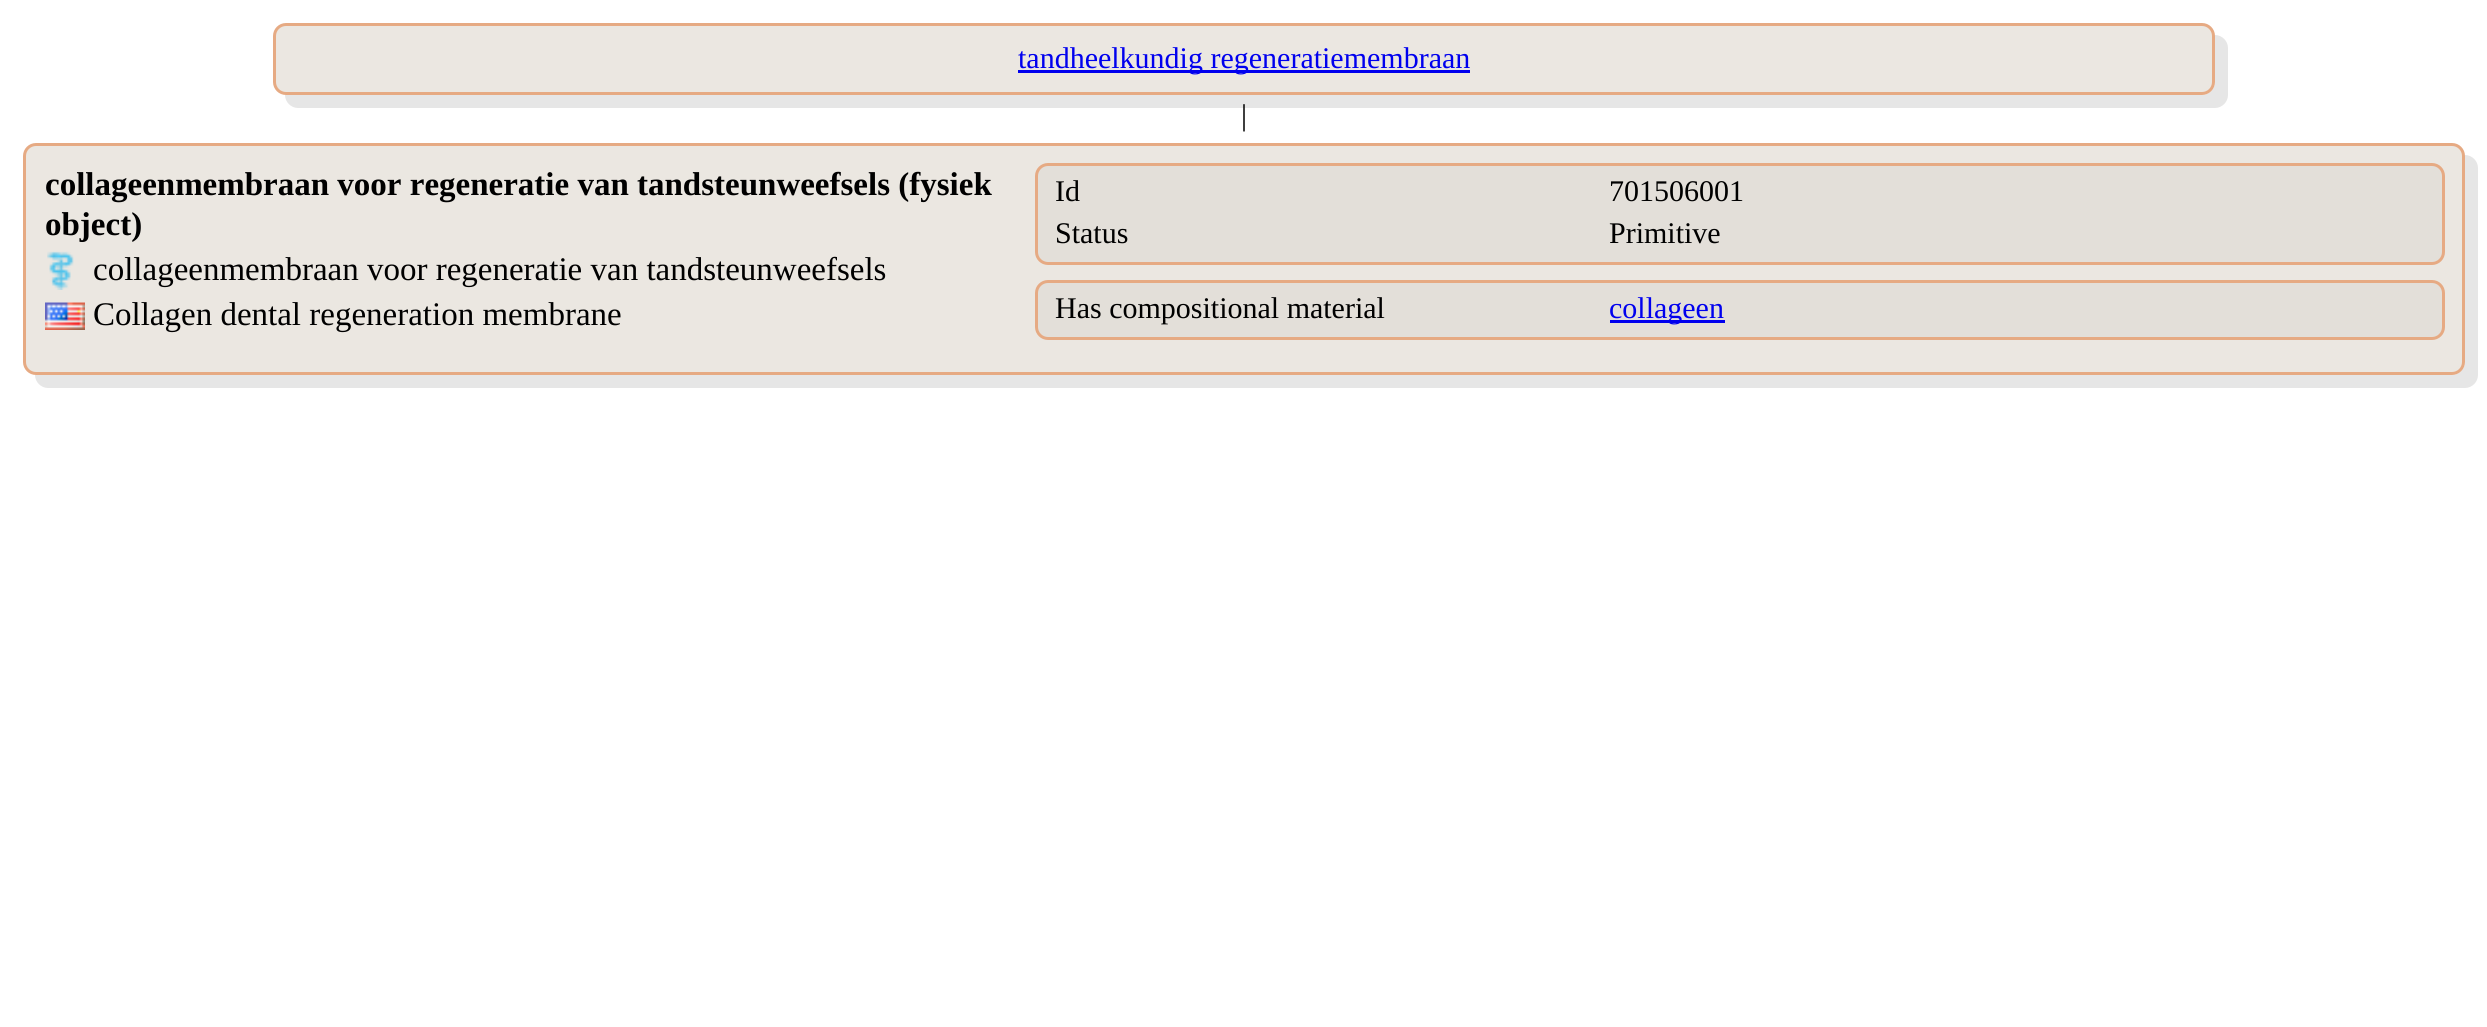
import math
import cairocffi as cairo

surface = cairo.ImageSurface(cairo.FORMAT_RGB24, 2487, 1027)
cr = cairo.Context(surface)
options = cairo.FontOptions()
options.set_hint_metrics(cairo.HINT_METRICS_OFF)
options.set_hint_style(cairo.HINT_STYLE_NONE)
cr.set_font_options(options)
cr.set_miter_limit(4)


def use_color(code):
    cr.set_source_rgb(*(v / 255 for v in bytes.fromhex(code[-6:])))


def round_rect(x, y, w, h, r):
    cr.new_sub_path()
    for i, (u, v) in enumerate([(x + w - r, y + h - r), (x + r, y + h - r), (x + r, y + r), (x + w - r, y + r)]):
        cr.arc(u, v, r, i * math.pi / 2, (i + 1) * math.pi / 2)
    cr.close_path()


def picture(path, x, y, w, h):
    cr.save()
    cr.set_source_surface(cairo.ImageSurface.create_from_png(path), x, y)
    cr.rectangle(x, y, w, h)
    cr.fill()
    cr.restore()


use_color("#ffffff")
cr.paint()
use_color("#e6e6e6")
cr.new_path()
cr.move_to(285, 95)
cr.curve_to(285, 102, 291, 108, 298, 108)
cr.line_to(2215, 108)
cr.curve_to(2222, 108, 2228, 102, 2228, 95)
cr.line_to(2228, 48)
cr.curve_to(2228, 41, 2222, 35, 2215, 35)
cr.line_to(2215, 82)
cr.curve_to(2215, 89, 2209, 95, 2202, 95)
cr.close_path()
cr.fill()
use_color("#ebe7e1")
round_rect(274.5, 24.5, 1939, 69, 11.5)
cr.fill_preserve()
use_color("#e6aa83")
cr.set_line_width(3)
cr.stroke()
use_color("#0000ee")
cr.rectangle(1018, 70, 452, 3)
cr.fill()
cr.select_font_face("Liberation Serif")
cr.set_font_size(30)
cr.move_to(1018, 68)
cr.show_text("tandheelkundig regeneratiemembraan")
use_color("#000000")
cr.move_to(1241, 125)
cr.show_text("|")
use_color("#e6e6e6")
cr.new_path()
cr.move_to(35, 375)
cr.curve_to(35, 382, 41, 388, 48, 388)
cr.line_to(2465, 388)
cr.curve_to(2472, 388, 2478, 382, 2478, 375)
cr.line_to(2478, 168)
cr.curve_to(2478, 161, 2472, 155, 2465, 155)
cr.line_to(2465, 362)
cr.curve_to(2465, 369, 2459, 375, 2452, 375)
cr.close_path()
cr.fill()
use_color("#ebe7e1")
round_rect(24.5, 144.5, 2439, 229, 11.5)
cr.fill_preserve()
use_color("#e6aa83")
cr.stroke()
cr.select_font_face("Liberation Serif", cairo.FONT_SLANT_NORMAL, cairo.FONT_WEIGHT_BOLD)
cr.set_font_size(33)
use_color("#000000")
cr.move_to(45, 195)
cr.show_text("collageenmembraan voor regeneratie van tandsteunweefsels (fysiek")
cr.move_to(45, 235)
cr.show_text("object)")
picture("img1.png", 47, 251, 27, 39)
cr.select_font_face("Liberation Serif")
cr.move_to(93, 280)
cr.show_text("collageenmembraan voor regeneratie van tandsteunweefsels")
picture("img2.png", 45, 302, 40, 28)
cr.move_to(93, 325)
cr.show_text("Collagen dental regeneration membrane")
use_color("#e3dfd9")
round_rect(1036.5, 164.5, 1407, 99, 11.5)
cr.fill_preserve()
use_color("#e6aa83")
cr.stroke()
cr.set_font_size(30)
use_color("#000000")
cr.move_to(1055, 201)
cr.show_text("Id")
cr.move_to(1609, 201)
cr.show_text("701506001")
cr.move_to(1055, 243)
cr.show_text("Status")
cr.move_to(1609, 243)
cr.show_text("Primitive")
use_color("#e3dfd9")
round_rect(1036.5, 281.5, 1407, 57, 11.5)
cr.fill_preserve()
use_color("#e6aa83")
cr.stroke()
use_color("#000000")
cr.move_to(1055, 318)
cr.show_text("Has compositional material")
use_color("#0000ee")
cr.rectangle(1610, 320, 115, 3)
cr.fill()
cr.move_to(1609, 318)
cr.show_text("collageen")
surface.write_to_png("result.png")
